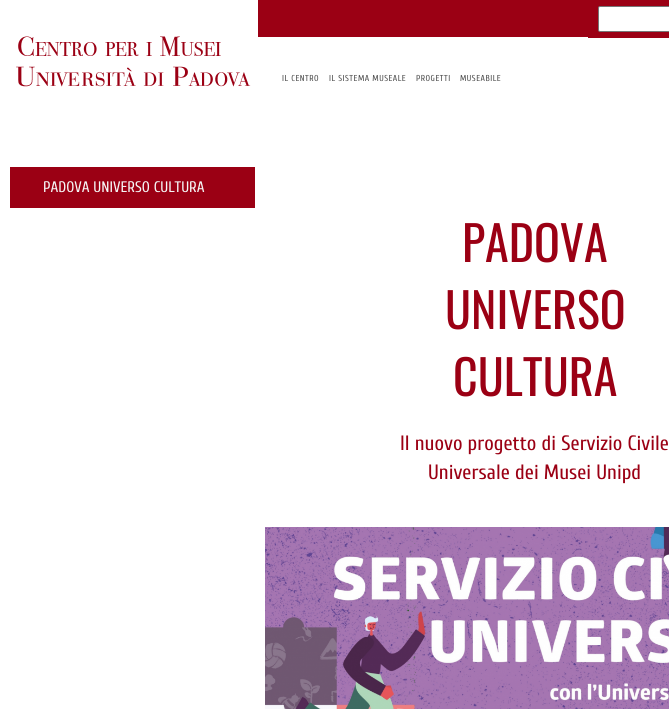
import math
import cairocffi as cairo

surface = cairo.ImageSurface(cairo.FORMAT_RGB24, 669, 709)
cr = cairo.Context(surface)
options = cairo.FontOptions()
options.set_hint_metrics(cairo.HINT_METRICS_OFF)
options.set_hint_style(cairo.HINT_STYLE_NONE)
cr.set_font_options(options)
cr.set_miter_limit(4)


def use_color(code):
    cr.set_source_rgb(*(v / 255 for v in bytes.fromhex(code[-6:])))


def spaced_text(x, y, s, letter, word):
    cr.move_to(x, y)
    for ch in s:
        cr.show_text(ch)
        cr.rel_move_to(letter + word * (ch == ' '), 0)


def round_rect(x, y, w, h, r):
    cr.new_sub_path()
    for i, (u, v) in enumerate([(x + w - r, y + h - r), (x + r, y + h - r), (x + r, y + r), (x + w - r, y + r)]):
        cr.arc(u, v, r, i * math.pi / 2, (i + 1) * math.pi / 2)
    cr.close_path()


def picture(path, x, y, w, h):
    cr.save()
    cr.set_source_surface(cairo.ImageSurface.create_from_png(path), x, y)
    cr.rectangle(x, y, w, h)
    cr.fill()
    cr.restore()


use_color("#ffffff")
cr.paint()
picture("img1.png", 16, 36, 235, 51)
use_color("#9b0014")
cr.rectangle(258, 0, 330, 37)
cr.fill()
cr.rectangle(588, 0, 81, 38)
cr.fill()
use_color("#ffffff")
round_rect(598.5, 6.5, 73, 25, 1.5)
cr.fill_preserve()
use_color("#767676")
cr.set_line_width(1)
cr.stroke()
cr.select_font_face("Cuprum")
cr.set_font_size(8.6)
use_color("#4f4f4f")
spaced_text(282, 81, "IL CENTRO", 0.5, 0)
spaced_text(329, 81, "IL SISTEMA MUSEALE", 0.5, 0)
spaced_text(416, 81, "PROGETTI", 0.5, 0)
spaced_text(460, 81, "MUSEABILE", 0.5, 0)
use_color("#9b0014")
cr.rectangle(10, 167, 245, 41)
cr.fill()
cr.set_font_size(15.25)
use_color("#f5f5f5")
cr.move_to(43, 192)
cr.show_text("PADOVA UNIVERSO CULTURA")
cr.select_font_face("Oswald")
cr.set_font_size(48)
use_color("#9b0014")
cr.move_to(462, 262)
cr.show_text("PADOVA")
cr.move_to(445, 329)
cr.show_text("UNIVERSO")
cr.move_to(453, 396)
cr.show_text("CULTURA")
cr.select_font_face("Cuprum")
cr.set_font_size(20.75)
cr.move_to(400, 450)
cr.show_text("Il nuovo progetto di Servizio Civile")
cr.move_to(428, 479)
cr.show_text("Universale dei Musei Unipd")
picture("img2.png", 265, 527, 404, 182)
surface.write_to_png("result.png")
